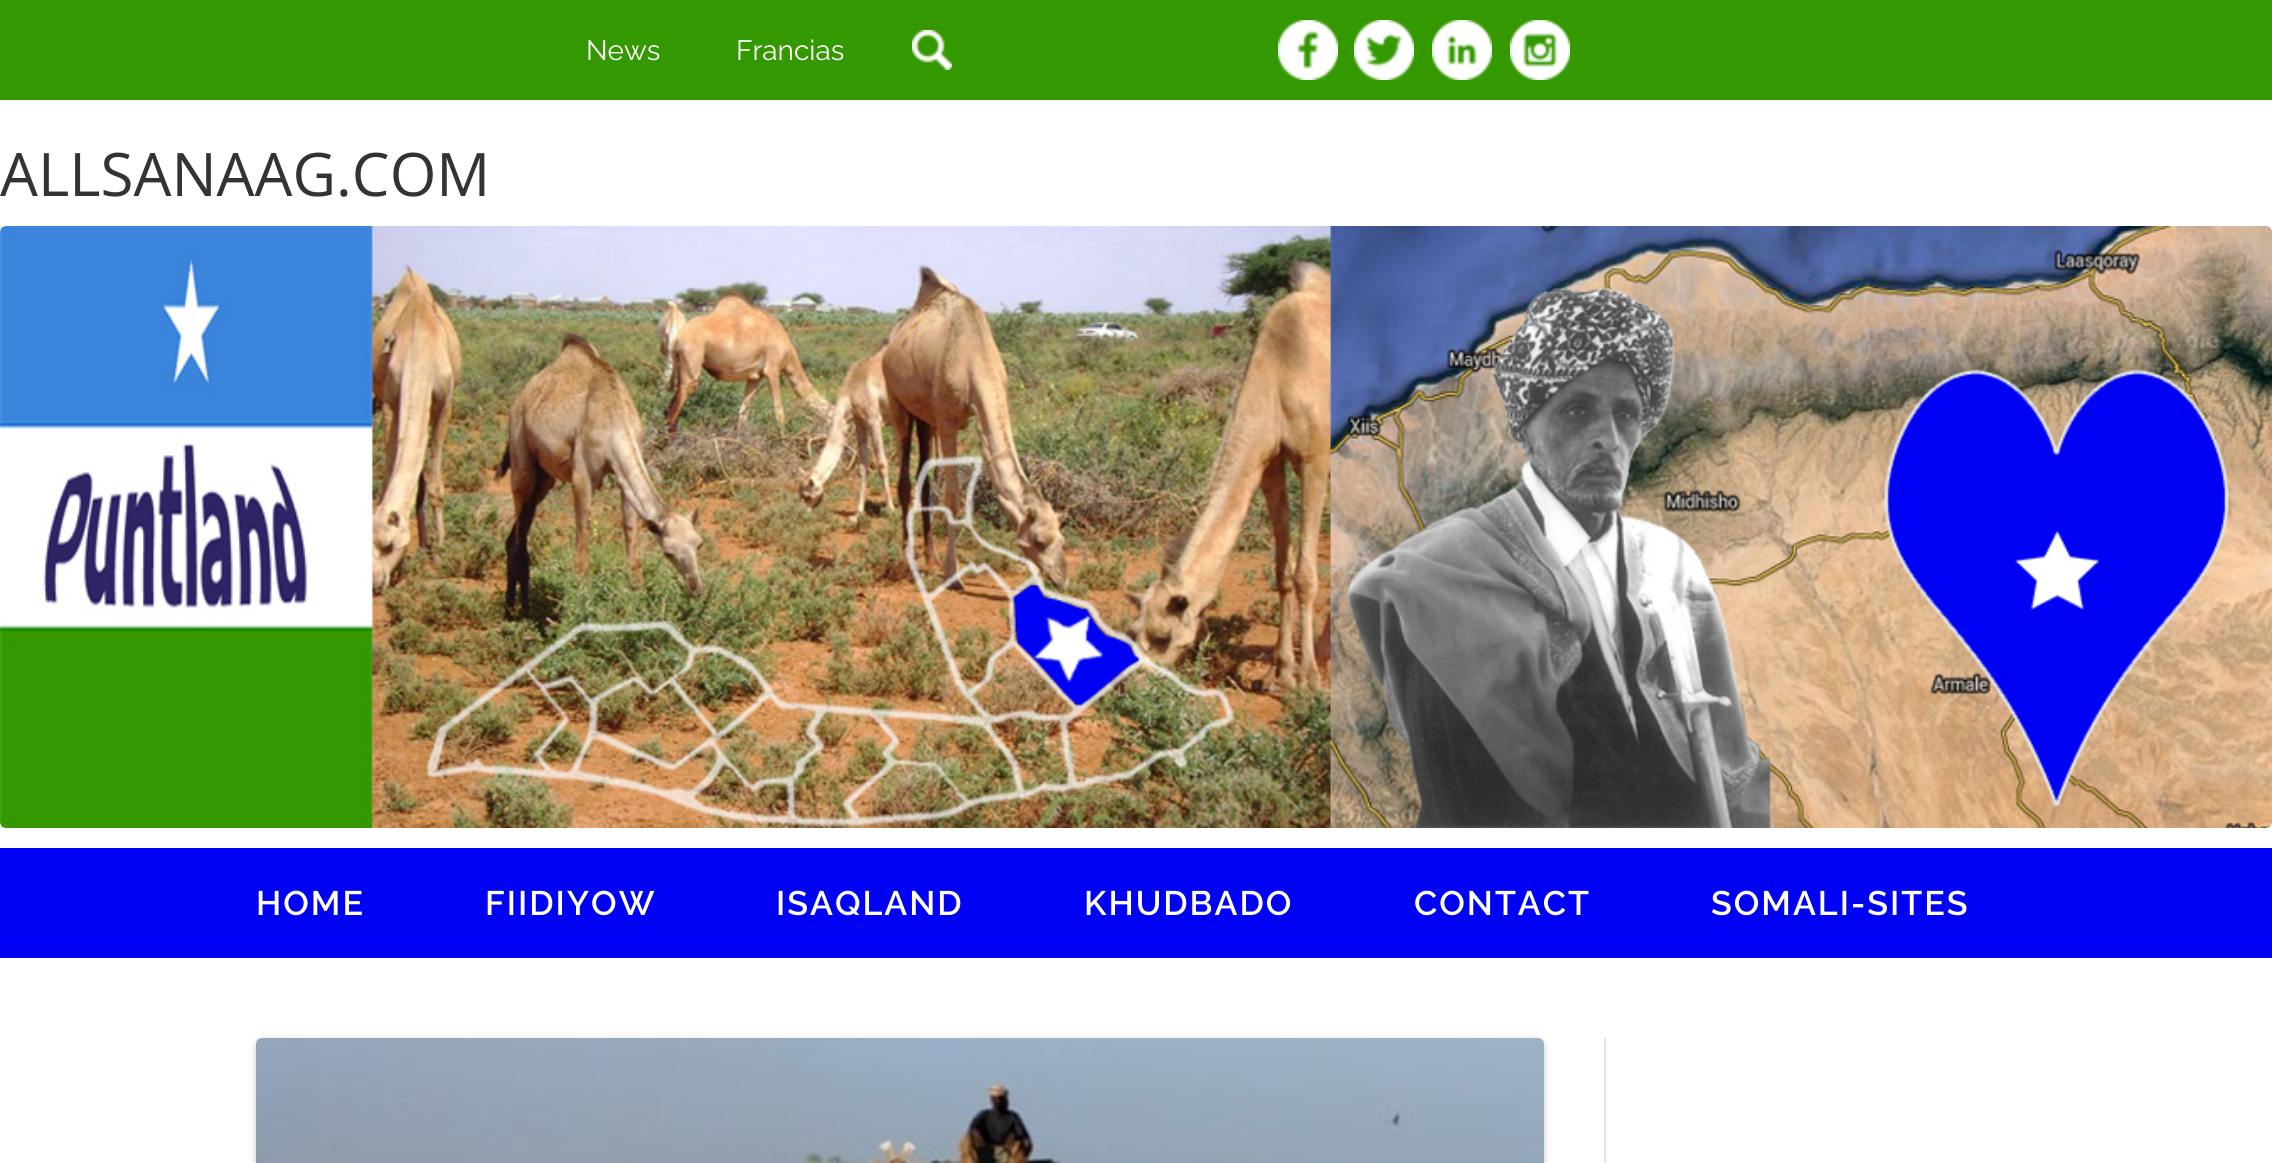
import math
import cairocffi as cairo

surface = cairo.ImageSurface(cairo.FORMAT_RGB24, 2272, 1163)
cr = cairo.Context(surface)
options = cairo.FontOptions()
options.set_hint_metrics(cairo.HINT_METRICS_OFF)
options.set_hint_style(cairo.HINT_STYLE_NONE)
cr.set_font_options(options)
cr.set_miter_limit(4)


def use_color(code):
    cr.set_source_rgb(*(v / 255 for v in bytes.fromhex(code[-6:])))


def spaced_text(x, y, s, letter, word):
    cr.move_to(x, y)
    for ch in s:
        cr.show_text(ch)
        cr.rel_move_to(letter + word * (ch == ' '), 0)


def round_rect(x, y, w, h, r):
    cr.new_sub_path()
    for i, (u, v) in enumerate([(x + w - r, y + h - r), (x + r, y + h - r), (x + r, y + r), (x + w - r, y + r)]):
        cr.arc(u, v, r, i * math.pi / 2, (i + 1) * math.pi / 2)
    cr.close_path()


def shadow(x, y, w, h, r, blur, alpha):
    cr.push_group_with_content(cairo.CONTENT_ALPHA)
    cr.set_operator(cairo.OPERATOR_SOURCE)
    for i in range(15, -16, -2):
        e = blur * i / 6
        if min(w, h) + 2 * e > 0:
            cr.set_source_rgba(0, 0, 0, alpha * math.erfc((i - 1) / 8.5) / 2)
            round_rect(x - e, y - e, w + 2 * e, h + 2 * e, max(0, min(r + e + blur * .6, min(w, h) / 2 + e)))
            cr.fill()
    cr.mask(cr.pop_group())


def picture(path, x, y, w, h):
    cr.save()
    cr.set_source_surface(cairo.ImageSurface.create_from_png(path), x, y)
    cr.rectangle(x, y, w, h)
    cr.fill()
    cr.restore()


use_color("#ffffff")
cr.paint()
use_color("#349800")
cr.rectangle(0, 0, 2272, 100)
cr.fill()
cr.select_font_face("Raleway")
cr.set_font_size(28)
use_color("#ffffff")
cr.move_to(586, 60)
cr.show_text("News")
cr.move_to(736, 60)
cr.show_text("Francias")
picture("img1.png", 912, 30, 40, 40)
picture("img2.png", 1278, 20, 60, 60)
picture("img3.png", 1354, 20, 60, 60)
picture("img4.png", 1432, 20, 60, 60)
picture("img5.png", 1510, 20, 60, 60)
cr.select_font_face("Open Sans")
cr.set_font_size(60)
use_color("#333333")
cr.move_to(0, 196)
cr.show_text("ALLSANAAG.COM")
picture("img6.png", 0, 226, 2272, 602)
use_color("#0002f3")
cr.rectangle(0, 848, 2272, 110)
cr.fill()
cr.select_font_face("Raleway SemiBold")
cr.set_font_size(34)
use_color("#ffffff")
spaced_text(256, 915, "HOME", 2, 0)
spaced_text(485, 915, "FIIDIYOW", 2, 0)
spaced_text(776, 915, "ISAQLAND", 2, 0)
spaced_text(1084, 915, "KHUDBADO", 2, 0)
spaced_text(1414, 915, "CONTACT", 2, 0)
spaced_text(1711, 915, "SOMALI-SITES", 2, 0)
use_color("#e6e6e6")
cr.rectangle(1604, 1038, 2, 125)
cr.fill()
use_color("#000000")
shadow(256, 1040, 1288, 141, 6, 4, 0.2)
picture("img7.png", 256, 1038, 1288, 125)
surface.write_to_png("result.png")
